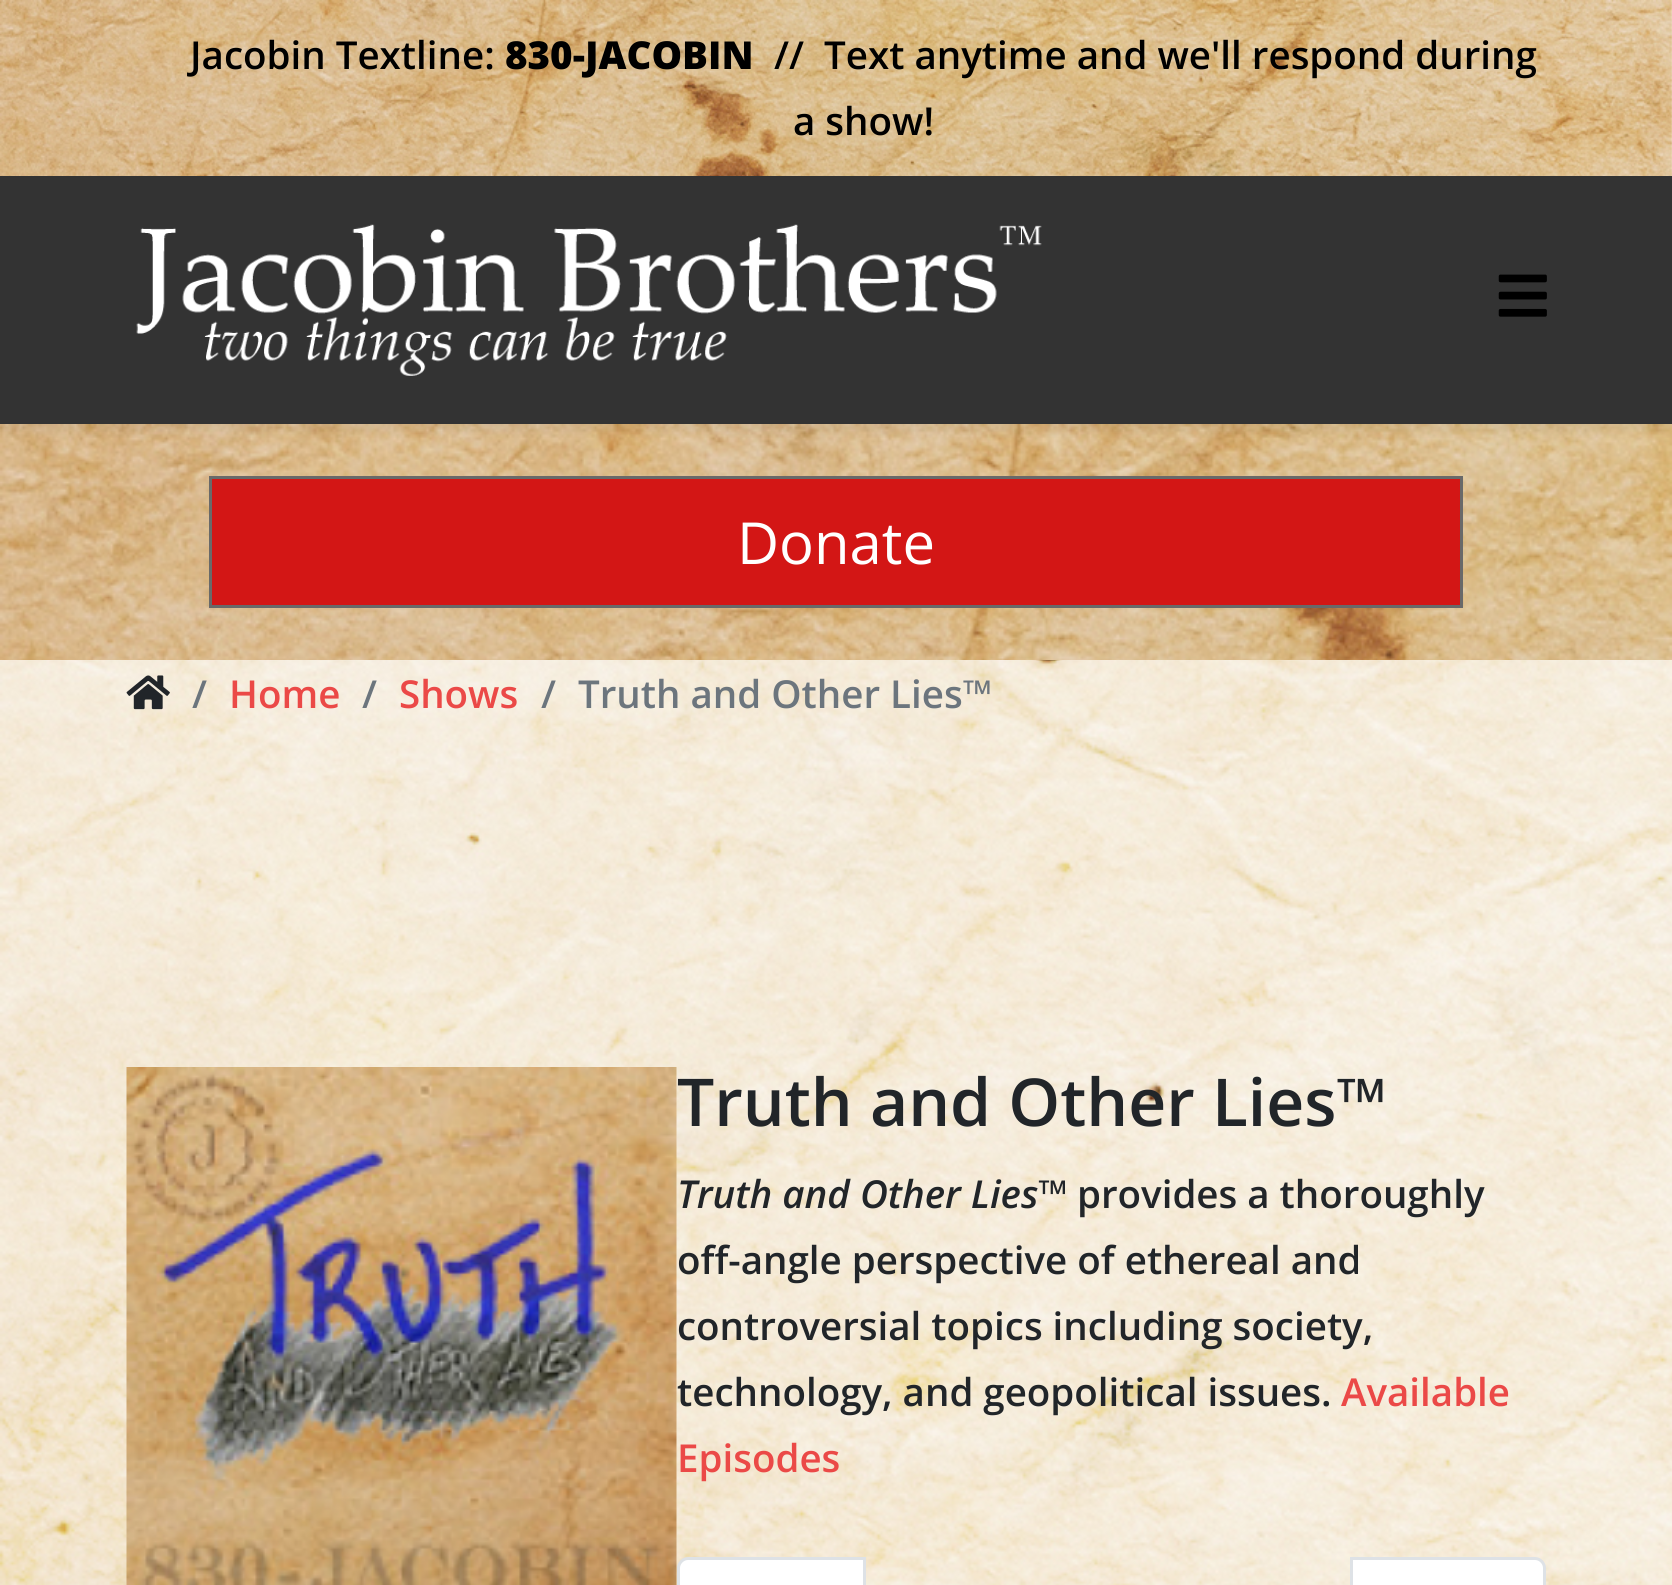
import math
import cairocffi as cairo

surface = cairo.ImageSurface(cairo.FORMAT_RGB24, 1672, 1585)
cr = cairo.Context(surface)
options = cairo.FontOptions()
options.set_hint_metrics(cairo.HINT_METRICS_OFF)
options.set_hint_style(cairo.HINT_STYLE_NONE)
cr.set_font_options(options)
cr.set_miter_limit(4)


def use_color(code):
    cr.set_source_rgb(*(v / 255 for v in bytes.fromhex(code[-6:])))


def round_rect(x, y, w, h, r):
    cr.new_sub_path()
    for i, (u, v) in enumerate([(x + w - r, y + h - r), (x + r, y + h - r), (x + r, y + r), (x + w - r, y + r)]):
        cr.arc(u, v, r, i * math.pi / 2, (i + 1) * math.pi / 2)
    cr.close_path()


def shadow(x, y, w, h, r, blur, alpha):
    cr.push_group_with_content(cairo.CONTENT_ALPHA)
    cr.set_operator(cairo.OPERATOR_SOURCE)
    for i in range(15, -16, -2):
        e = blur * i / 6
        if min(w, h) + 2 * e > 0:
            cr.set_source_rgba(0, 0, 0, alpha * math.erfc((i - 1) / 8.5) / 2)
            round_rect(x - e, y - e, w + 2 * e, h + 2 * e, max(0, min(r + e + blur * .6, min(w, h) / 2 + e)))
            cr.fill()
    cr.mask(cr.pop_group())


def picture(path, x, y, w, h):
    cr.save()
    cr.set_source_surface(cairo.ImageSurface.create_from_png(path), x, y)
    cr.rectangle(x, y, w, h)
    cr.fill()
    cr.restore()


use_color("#ffffff")
cr.paint()
picture("img1.png", 0, 0, 1672, 1585)
picture("img2.png", 0, 0, 1672, 176)
cr.select_font_face("Open Sans SemiBold")
cr.set_font_size(38.5)
use_color("#000000")
cr.move_to(190, 69)
cr.show_text("Jacobin Textline:")
cr.select_font_face("Open Sans ExtraBold")
cr.move_to(505, 69)
cr.show_text("830-JACOBIN")
cr.select_font_face("Open Sans SemiBold")
cr.move_to(774, 69)
cr.show_text("//  Text anytime and we'll respond during")
cr.move_to(793, 135)
cr.show_text("a show!")
picture("img5.png", 0, 424, 1672, 236)
use_color("#000000")
shadow(0, 184, 1672, 248, 0, 4, 0.05)
use_color("#333333")
cr.rectangle(0, 176, 1672, 248)
cr.fill()
picture("img3.png", 136, 224, 906, 152)
picture("img4.png", 1498, 274, 49, 43)
use_color("#d31615")
cr.rectangle(210.5, 477.5, 1251, 129)
cr.fill_preserve()
use_color("#696969")
cr.set_line_width(3)
cr.stroke()
cr.select_font_face("Open Sans")
cr.set_font_size(58)
use_color("#ffffff")
cr.move_to(737, 564)
cr.show_text("Donate")
picture("img6.png", 126, 675, 44, 35)
cr.select_font_face("Open Sans SemiBold")
cr.set_font_size(38.5)
use_color("#6c757d")
cr.move_to(192, 708)
cr.show_text("/")
use_color("#eb4947")
cr.move_to(229, 708)
cr.show_text("Home")
use_color("#6c757d")
cr.move_to(362, 708)
cr.show_text("/")
use_color("#eb4947")
cr.move_to(399, 708)
cr.show_text("Shows")
use_color("#6c757d")
cr.move_to(541, 708)
cr.show_text("/")
cr.move_to(578, 708)
cr.show_text("Truth and Other Lies™")
picture("img7.png", 126, 1067, 551, 518)
cr.set_font_size(66)
use_color("#212529")
cr.move_to(677, 1126)
cr.show_text("Truth and Other Lies™")
cr.select_font_face("Open Sans SemiBold", cairo.FONT_SLANT_ITALIC)
cr.set_font_size(38.5)
cr.move_to(677, 1208)
cr.show_text("Truth and Other Lies™")
cr.select_font_face("Open Sans SemiBold")
cr.move_to(1077, 1208)
cr.show_text("provides a thoroughly")
cr.move_to(677, 1274)
cr.show_text("off-angle perspective of ethereal and")
cr.move_to(677, 1340)
cr.show_text("controversial topics including society,")
cr.move_to(677, 1406)
cr.show_text("technology, and geopolitical issues.")
use_color("#eb4947")
cr.move_to(1341, 1406)
cr.show_text("Available")
cr.move_to(677, 1472)
cr.show_text("Episodes")
use_color("#ffffff")
cr.new_path()
cr.move_to(688, 1558.5)
cr.line_to(864.5, 1558.5)
cr.line_to(864.5, 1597.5)
cr.line_to(688, 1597.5)
cr.curve_to(683, 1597.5, 678.5, 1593, 678.5, 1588)
cr.line_to(678.5, 1568)
cr.curve_to(678.5, 1563, 683, 1558.5, 688, 1558.5)
cr.close_path()
cr.fill_preserve()
use_color("#dee2e6")
cr.stroke()
use_color("#ffffff")
cr.new_path()
cr.move_to(1351.5, 1558.5)
cr.line_to(1535, 1558.5)
cr.curve_to(1540, 1558.5, 1544.5, 1563, 1544.5, 1568)
cr.line_to(1544.5, 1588)
cr.curve_to(1544.5, 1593, 1540, 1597.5, 1535, 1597.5)
cr.line_to(1351.5, 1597.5)
cr.close_path()
cr.fill_preserve()
use_color("#dee2e6")
cr.stroke()
surface.write_to_png("result.png")
